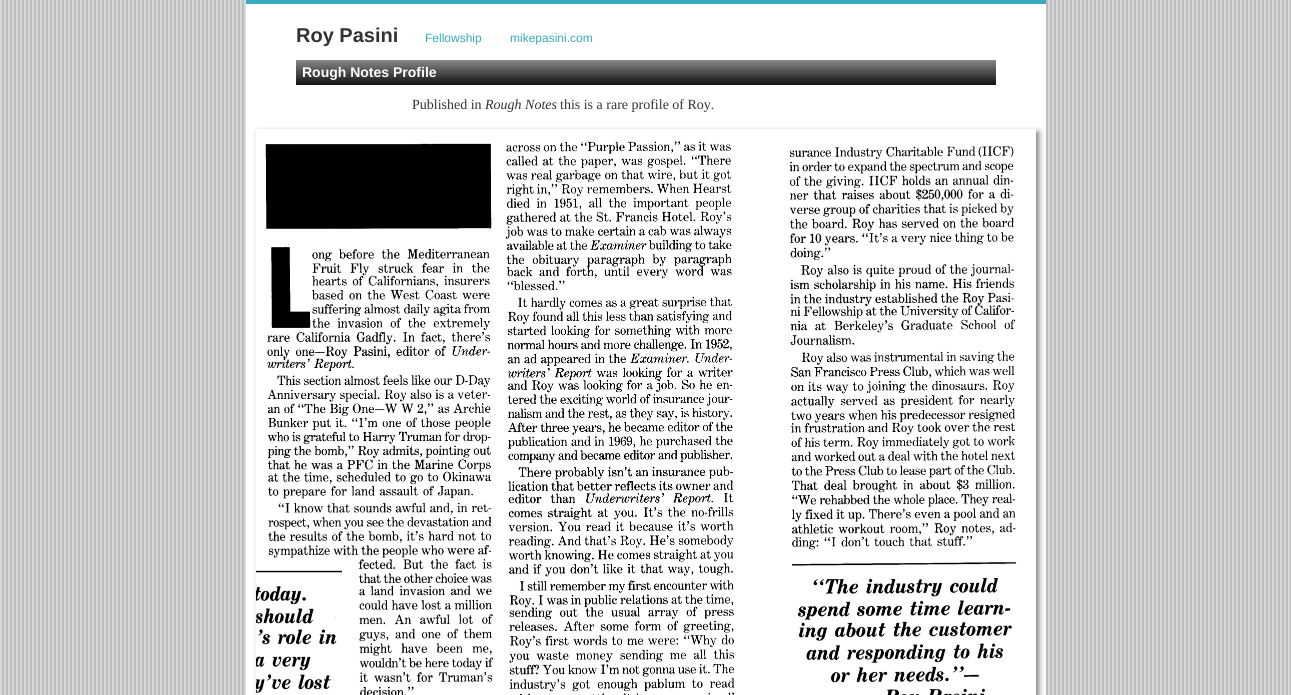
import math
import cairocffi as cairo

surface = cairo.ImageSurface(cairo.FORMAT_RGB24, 1291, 695)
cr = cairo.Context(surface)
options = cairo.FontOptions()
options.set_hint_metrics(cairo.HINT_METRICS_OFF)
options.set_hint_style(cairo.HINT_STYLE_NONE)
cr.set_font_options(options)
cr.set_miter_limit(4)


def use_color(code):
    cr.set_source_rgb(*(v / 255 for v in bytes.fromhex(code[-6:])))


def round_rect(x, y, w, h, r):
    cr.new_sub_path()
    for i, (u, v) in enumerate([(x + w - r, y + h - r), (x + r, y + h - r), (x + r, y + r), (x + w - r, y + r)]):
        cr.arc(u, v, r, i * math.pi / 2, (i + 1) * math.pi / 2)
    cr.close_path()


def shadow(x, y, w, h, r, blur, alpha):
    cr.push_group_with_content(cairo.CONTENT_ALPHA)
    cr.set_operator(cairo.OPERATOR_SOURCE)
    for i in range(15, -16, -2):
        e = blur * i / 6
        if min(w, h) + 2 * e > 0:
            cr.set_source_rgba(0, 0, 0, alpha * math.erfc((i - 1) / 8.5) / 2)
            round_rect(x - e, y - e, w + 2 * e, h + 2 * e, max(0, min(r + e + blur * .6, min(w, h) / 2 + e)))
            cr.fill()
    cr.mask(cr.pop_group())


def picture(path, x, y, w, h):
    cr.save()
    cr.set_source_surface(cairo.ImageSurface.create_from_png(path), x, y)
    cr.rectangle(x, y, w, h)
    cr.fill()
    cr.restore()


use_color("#ffffff")
cr.paint()
picture("img1.png", 0, 0, 1291, 695)
use_color("#38aac2")
cr.rectangle(246, 0, 800, 4)
cr.fill()
use_color("#ffffff")
cr.rectangle(246, 4, 800, 691)
cr.fill()
cr.select_font_face("Liberation Sans", cairo.FONT_SLANT_NORMAL, cairo.FONT_WEIGHT_BOLD)
cr.set_font_size(20)
use_color("#333333")
cr.move_to(296, 42)
cr.show_text("Roy Pasini")
cr.select_font_face("Liberation Sans")
cr.set_font_size(12)
use_color("#36aac2")
cr.move_to(425, 42)
cr.show_text("Fellowship")
cr.move_to(510, 42)
cr.show_text("mikepasini.com")
gradient = cairo.LinearGradient(646, 85, 646, 60)
gradient.add_color_stop_rgba(0, 0.067, 0.067, 0.067, 1)
gradient.add_color_stop_rgba(1, 0.533, 0.533, 0.533, 1)
cr.set_source(gradient)
cr.rectangle(296, 60, 700, 25)
cr.fill()
cr.select_font_face("Liberation Sans", cairo.FONT_SLANT_NORMAL, cairo.FONT_WEIGHT_BOLD)
cr.set_font_size(14)
use_color("#ffffff")
cr.move_to(302, 77)
cr.show_text("Rough Notes Profile")
cr.select_font_face("Liberation Serif")
use_color("#333333")
cr.move_to(412, 109)
cr.show_text("Published in")
cr.select_font_face("Liberation Serif", cairo.FONT_SLANT_ITALIC)
cr.move_to(485, 109)
cr.show_text("Rough Notes")
cr.select_font_face("Liberation Serif")
cr.move_to(560, 109)
cr.show_text("this is a rare profile of Roy.")
cr.save()
cr.set_fill_rule(cairo.FILL_RULE_EVEN_ODD)
cr.new_path()
cr.move_to(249, 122)
cr.line_to(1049, 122)
cr.line_to(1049, 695)
cr.line_to(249, 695)
cr.close_path()
cr.move_to(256, 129)
cr.line_to(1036, 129)
cr.line_to(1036, 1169)
cr.line_to(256, 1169)
cr.close_path()
cr.clip()
use_color("#808080")
shadow(259, 132, 780, 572, 0, 3, 1)
cr.restore()
picture("img2.png", 256, 141, 761, 554)
surface.write_to_png("result.png")
